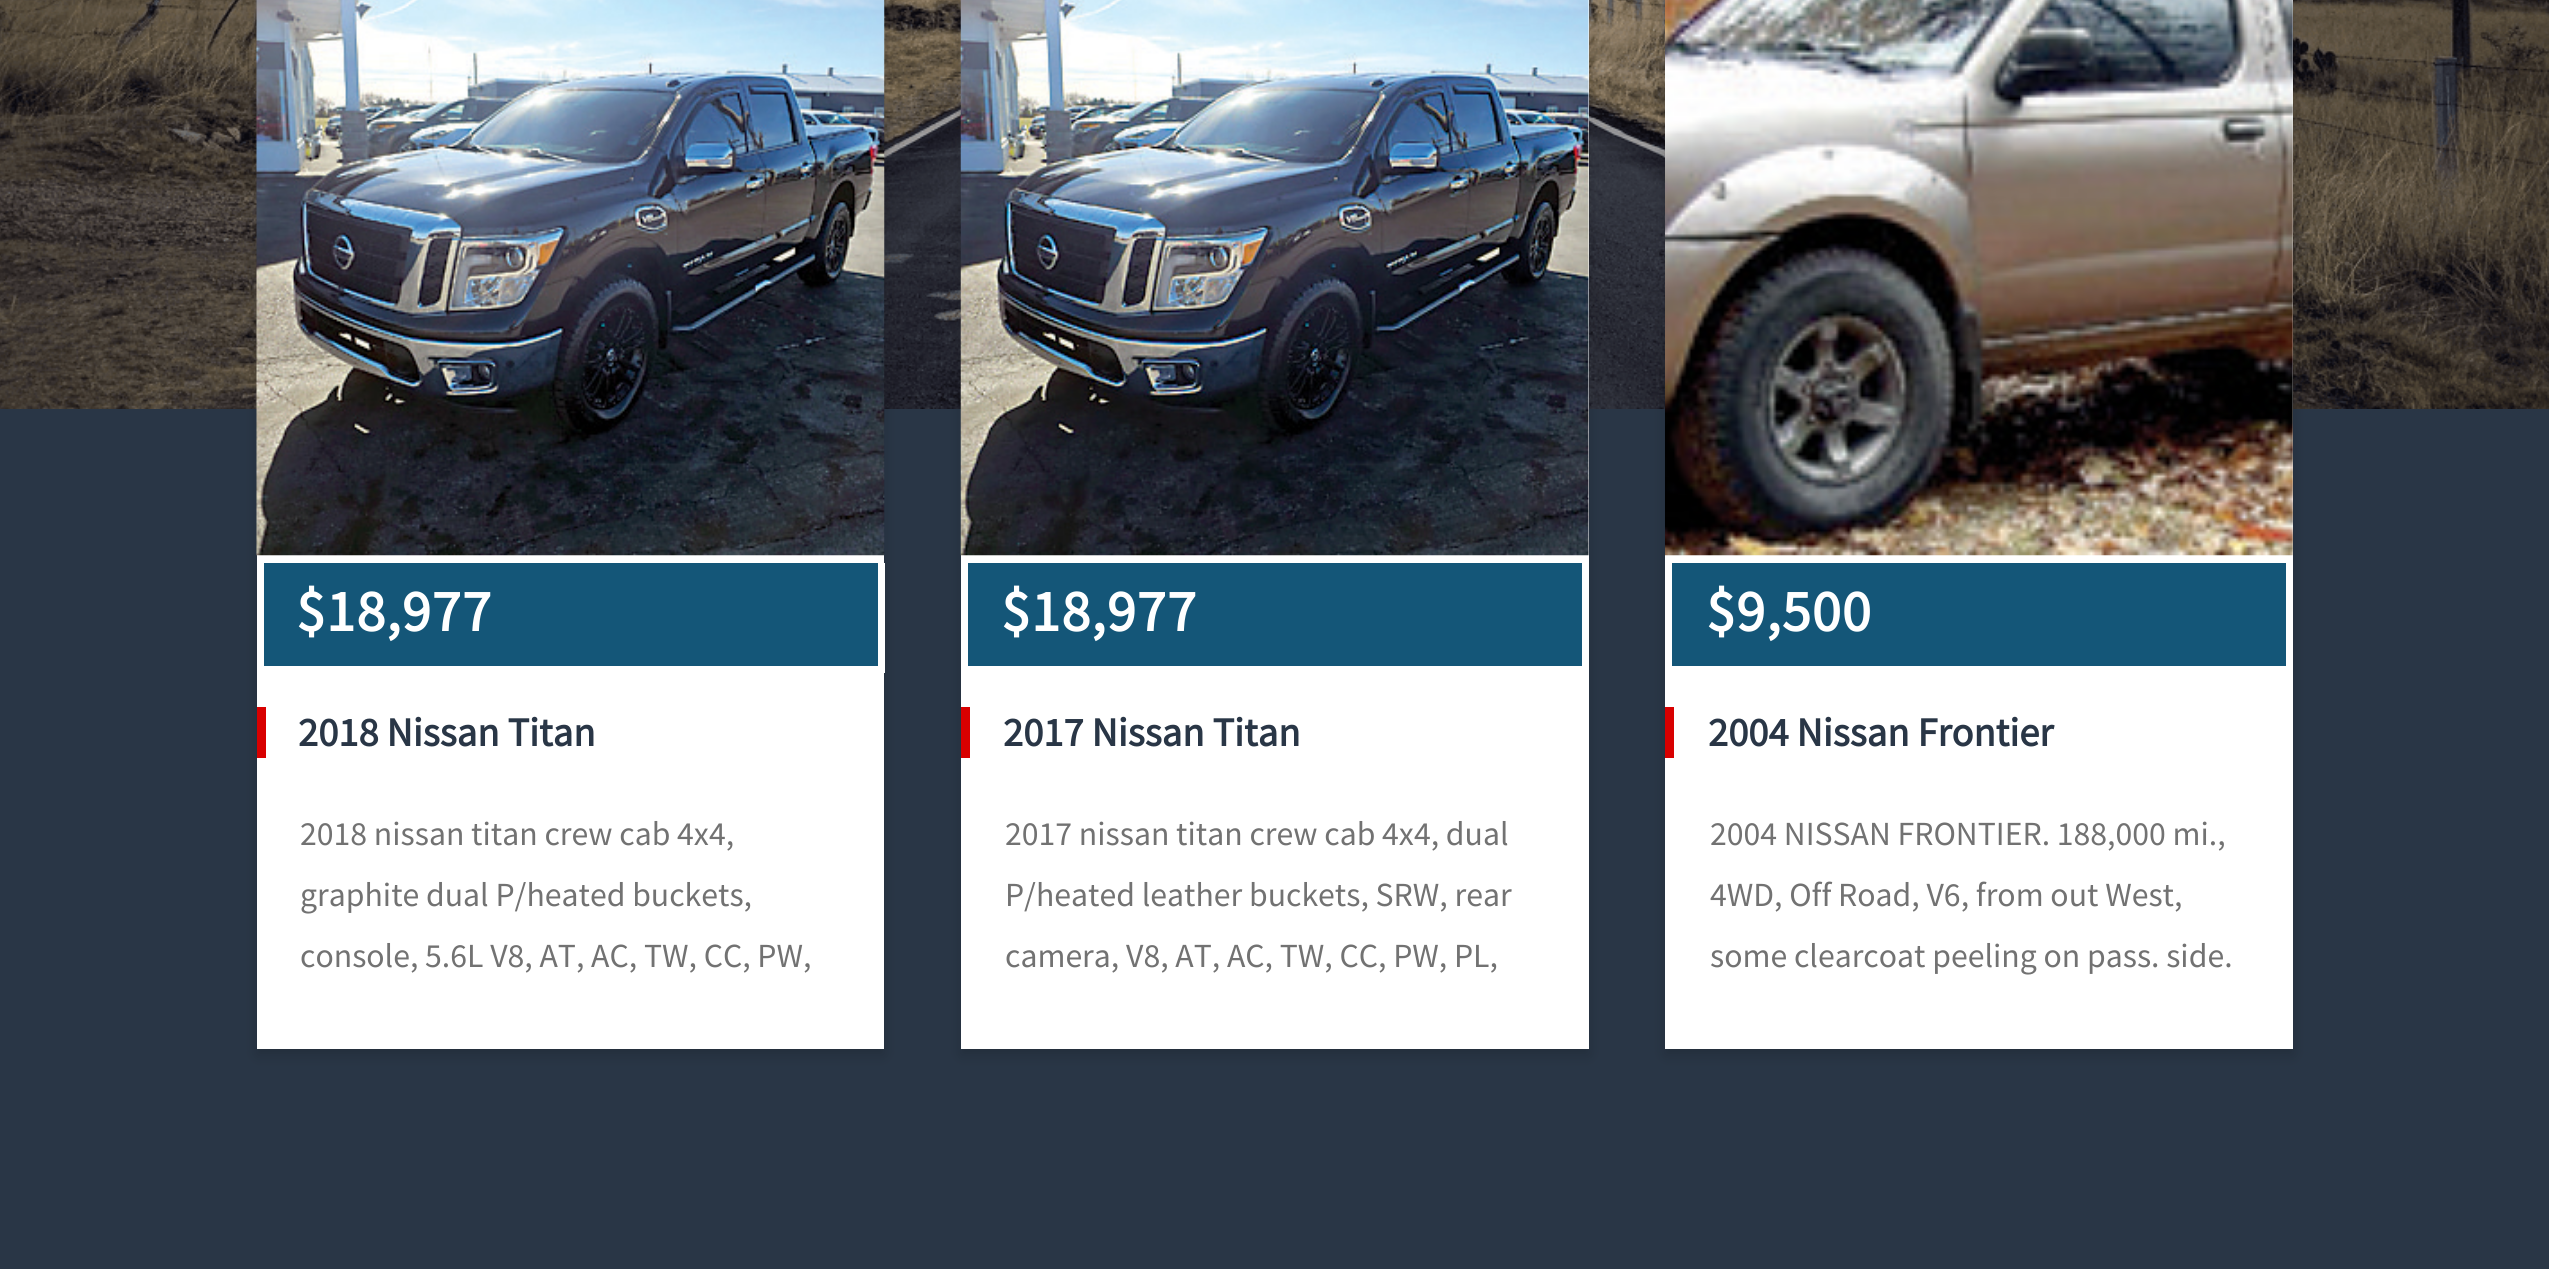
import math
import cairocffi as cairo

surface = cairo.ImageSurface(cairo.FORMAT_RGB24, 2549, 1269)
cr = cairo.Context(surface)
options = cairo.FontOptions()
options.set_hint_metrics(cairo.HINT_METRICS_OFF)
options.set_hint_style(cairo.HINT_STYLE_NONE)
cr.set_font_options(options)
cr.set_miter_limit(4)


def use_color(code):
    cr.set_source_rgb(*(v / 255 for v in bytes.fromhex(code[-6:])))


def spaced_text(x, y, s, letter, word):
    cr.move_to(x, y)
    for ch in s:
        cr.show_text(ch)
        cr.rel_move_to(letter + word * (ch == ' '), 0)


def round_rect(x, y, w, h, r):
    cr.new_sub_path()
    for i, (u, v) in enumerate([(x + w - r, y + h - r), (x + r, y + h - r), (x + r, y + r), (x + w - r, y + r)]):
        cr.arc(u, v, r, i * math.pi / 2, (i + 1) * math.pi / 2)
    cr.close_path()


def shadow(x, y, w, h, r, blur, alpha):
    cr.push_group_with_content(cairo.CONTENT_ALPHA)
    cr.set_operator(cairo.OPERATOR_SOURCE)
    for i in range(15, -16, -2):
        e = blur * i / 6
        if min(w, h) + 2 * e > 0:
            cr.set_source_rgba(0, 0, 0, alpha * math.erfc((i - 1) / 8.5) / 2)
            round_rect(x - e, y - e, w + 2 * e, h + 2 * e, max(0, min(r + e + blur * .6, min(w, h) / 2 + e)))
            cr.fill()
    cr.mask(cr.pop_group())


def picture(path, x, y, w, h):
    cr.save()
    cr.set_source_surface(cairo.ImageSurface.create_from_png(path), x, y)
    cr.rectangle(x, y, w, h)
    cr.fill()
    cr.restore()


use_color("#293646")
cr.paint()
picture("img1.png", 0, 0, 2549, 409)
use_color("#000000")
shadow(257, -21, 627, 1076, 0, 7, 0.16)
use_color("#ffffff")
cr.rectangle(257, 555, 627, 494)
cr.fill()
picture("img2.png", 256, 0, 629, 556)
use_color("#145678")
cr.rectangle(264, 563, 614, 103)
cr.fill()
use_color("#ffffff")
cr.rectangle(884, 563, 1, 110)
cr.fill()
cr.select_font_face("Source Sans Pro", cairo.FONT_SLANT_NORMAL, cairo.FONT_WEIGHT_BOLD)
cr.set_font_size(58.5)
spaced_text(296, 631, "$18,977", 1, 0)
use_color("#d80000")
cr.rectangle(257, 707, 9, 51)
cr.fill()
cr.set_font_size(40.5)
use_color("#293646")
cr.move_to(298, 746)
cr.show_text("2018 Nissan Titan")
cr.select_font_face("Source Sans Pro")
cr.set_font_size(33.75)
use_color("#727272")
cr.move_to(300, 845)
cr.show_text("2018 nissan titan crew cab 4x4,")
cr.move_to(300, 906)
cr.show_text("graphite dual P/heated buckets,")
cr.move_to(300, 967)
cr.show_text("console, 5.6L V8, AT, AC, TW, CC, PW,")
use_color("#000000")
shadow(961, -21, 628, 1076, 0, 7, 0.16)
use_color("#ffffff")
cr.rectangle(961, 0, 628, 1049)
cr.fill()
picture("img3.png", 960, 0, 629, 556)
use_color("#145678")
cr.rectangle(968, 563, 614, 103)
cr.fill()
cr.select_font_face("Source Sans Pro", cairo.FONT_SLANT_NORMAL, cairo.FONT_WEIGHT_BOLD)
cr.set_font_size(58.5)
use_color("#ffffff")
spaced_text(1001, 631, "$18,977", 1, 0)
use_color("#d80000")
cr.rectangle(961, 707, 9, 51)
cr.fill()
cr.set_font_size(40.5)
use_color("#293646")
cr.move_to(1003, 746)
cr.show_text("2017 Nissan Titan")
cr.select_font_face("Source Sans Pro")
cr.set_font_size(33.75)
use_color("#727272")
cr.move_to(1005, 845)
cr.show_text("2017 nissan titan crew cab 4x4, dual")
cr.move_to(1005, 906)
cr.show_text("P/heated leather buckets, SRW, rear")
cr.move_to(1005, 967)
cr.show_text("camera, V8, AT, AC, TW, CC, PW, PL,")
use_color("#000000")
shadow(1665, -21, 628, 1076, 0, 7, 0.16)
use_color("#ffffff")
cr.rectangle(1665, 0, 628, 1049)
cr.fill()
picture("img4.png", 1665, 0, 628, 556)
use_color("#145678")
cr.rectangle(1672, 563, 614, 103)
cr.fill()
cr.select_font_face("Source Sans Pro", cairo.FONT_SLANT_NORMAL, cairo.FONT_WEIGHT_BOLD)
cr.set_font_size(58.5)
use_color("#ffffff")
spaced_text(1706, 631, "$9,500", 1, 0)
use_color("#d80000")
cr.rectangle(1665, 707, 9, 51)
cr.fill()
cr.set_font_size(40.5)
use_color("#293646")
cr.move_to(1708, 746)
cr.show_text("2004 Nissan Frontier")
cr.select_font_face("Source Sans Pro")
cr.set_font_size(33.75)
use_color("#727272")
cr.move_to(1710, 845)
cr.show_text("2004 NISSAN FRONTIER. 188,000 mi.,")
cr.move_to(1710, 906)
cr.show_text("4WD, Off Road, V6, from out West,")
cr.move_to(1710, 967)
cr.show_text("some clearcoat peeling on pass. side.")
surface.write_to_png("result.png")
